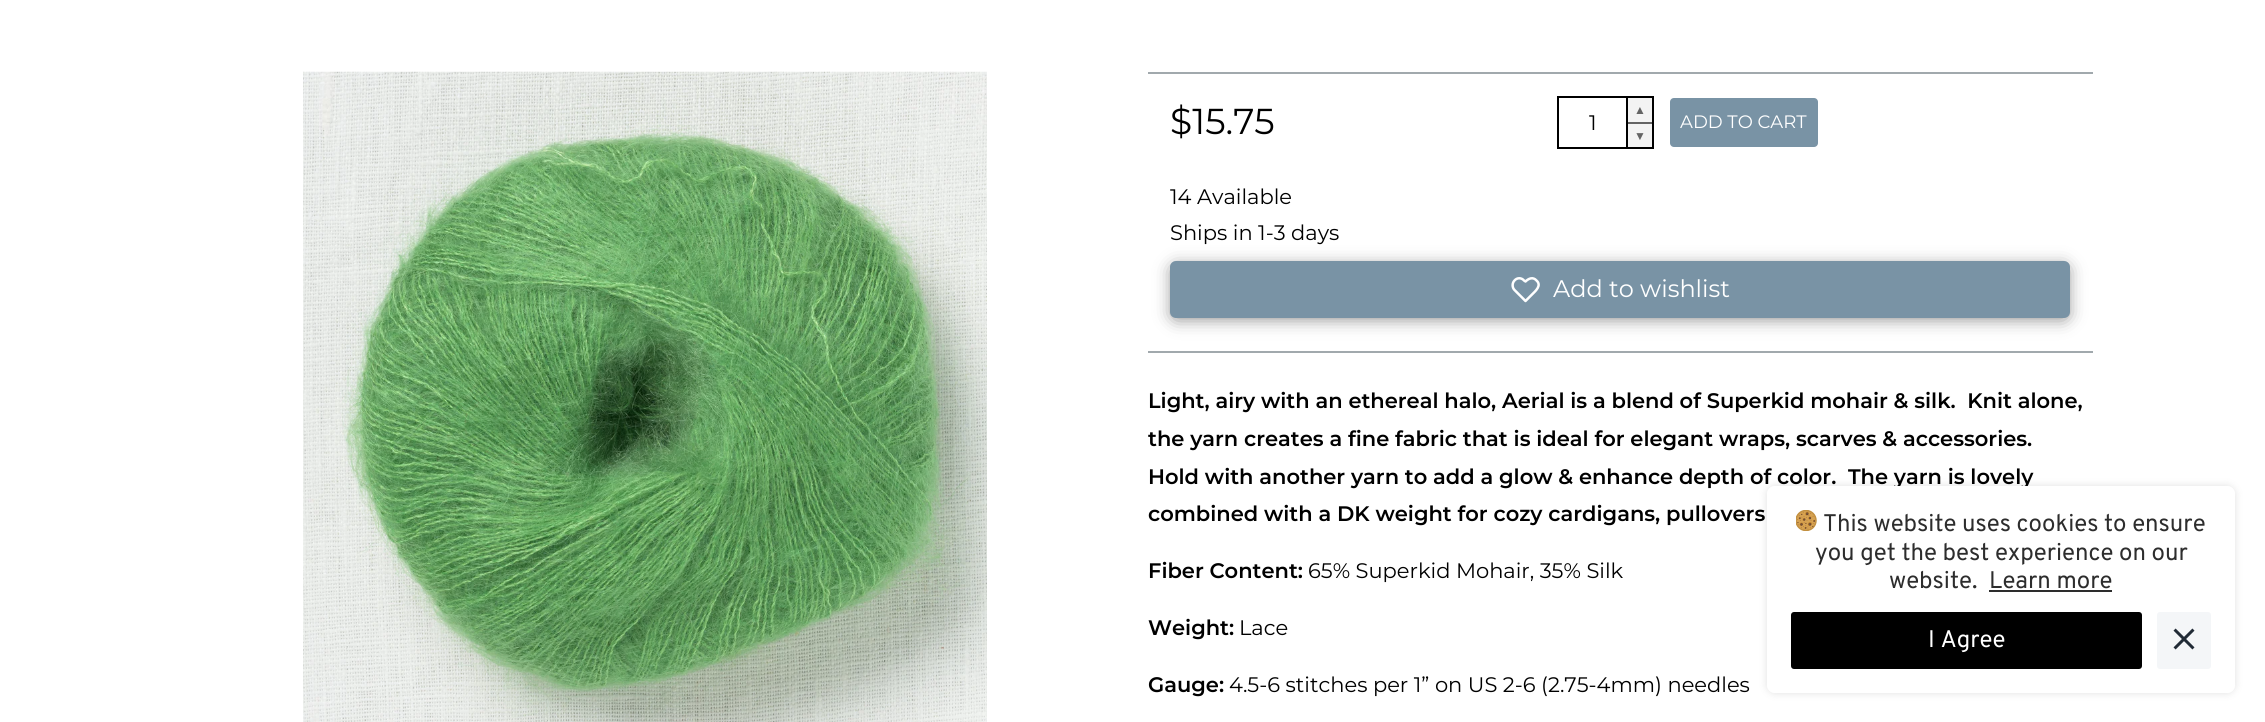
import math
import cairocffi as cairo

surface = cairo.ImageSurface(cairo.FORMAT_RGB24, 2265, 722)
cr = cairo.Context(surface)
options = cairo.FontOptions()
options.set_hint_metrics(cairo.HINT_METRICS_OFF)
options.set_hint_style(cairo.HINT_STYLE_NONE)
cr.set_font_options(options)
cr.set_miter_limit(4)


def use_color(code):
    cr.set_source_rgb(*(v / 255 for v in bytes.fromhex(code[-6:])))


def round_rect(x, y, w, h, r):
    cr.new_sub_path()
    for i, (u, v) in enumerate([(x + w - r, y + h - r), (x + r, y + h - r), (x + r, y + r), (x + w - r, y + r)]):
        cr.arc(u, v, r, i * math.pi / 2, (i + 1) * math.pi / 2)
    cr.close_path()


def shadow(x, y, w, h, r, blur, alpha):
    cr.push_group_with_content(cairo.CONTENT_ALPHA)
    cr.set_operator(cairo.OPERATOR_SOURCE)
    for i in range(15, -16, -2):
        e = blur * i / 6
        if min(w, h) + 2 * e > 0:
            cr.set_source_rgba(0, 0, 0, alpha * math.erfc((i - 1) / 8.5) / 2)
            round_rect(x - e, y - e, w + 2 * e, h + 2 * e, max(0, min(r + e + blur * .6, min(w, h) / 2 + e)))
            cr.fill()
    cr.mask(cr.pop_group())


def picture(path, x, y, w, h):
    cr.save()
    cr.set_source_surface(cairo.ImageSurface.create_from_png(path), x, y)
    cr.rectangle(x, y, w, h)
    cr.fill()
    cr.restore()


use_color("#ffffff")
cr.paint()
picture("img1.png", 303, 71, 684, 651)
use_color("#a1a9ad")
cr.rectangle(1148, 72, 945, 2)
cr.fill()
cr.rectangle(1148, 351, 945, 2)
cr.fill()
cr.select_font_face("Montserrat")
cr.set_font_size(36)
use_color("#000000")
cr.move_to(1170, 134)
cr.show_text("$15.75")
cr.rectangle(1558, 97, 69, 51)
cr.stroke()
cr.set_font_size(21)
cr.move_to(1589, 130)
cr.show_text("1")
cr.rectangle(1628, 96, 25, 2)
cr.fill()
cr.rectangle(1652, 96, 2, 53)
cr.fill()
cr.rectangle(1628, 147, 25, 2)
cr.fill()
use_color("#f3f3f3")
cr.rectangle(1628, 98, 24, 24)
cr.fill()
cr.select_font_face("Liberation Sans")
cr.set_font_size(12)
use_color("#646464")
cr.move_to(1634, 114)
cr.show_text("▲")
use_color("#f3f3f3")
cr.rectangle(1628, 124, 24, 23)
cr.fill()
use_color("#646464")
cr.rectangle(1628, 122, 24, 2)
cr.fill()
cr.move_to(1634, 140)
cr.show_text("▼")
use_color("#7993a5")
round_rect(1669, 97, 150, 51, 5)
cr.fill_preserve()
use_color("#ffffff")
cr.stroke()
cr.select_font_face("Montserrat")
cr.set_font_size(18)
cr.move_to(1680, 128)
cr.show_text("ADD TO CART")
cr.set_font_size(21)
use_color("#000000")
cr.move_to(1170, 204)
cr.show_text("14 Available")
cr.move_to(1170, 240)
cr.show_text("Ships in 1-3 days")
use_color("#000000")
shadow(1173, 267, 894, 51, 3, 9, 0.5)
use_color("#7993a5")
round_rect(1171, 262, 898, 55, 5)
cr.fill_preserve()
cr.stroke()
cr.new_path()
cr.move_to(1536.5, 280.5)
cr.curve_to(1533, 276.5, 1528.5, 278.5, 1525.5, 281.5)
cr.line_to(1524, 280.5)
cr.curve_to(1521.5, 277.5, 1517, 277.5, 1514.5, 280.5)
cr.curve_to(1512, 283, 1512, 287.5, 1514.5, 290)
cr.line_to(1525.5, 301)
cr.line_to(1532, 294.5)
cr.curve_to(1535.5, 291, 1542, 285.5, 1536.5, 280.5)
cr.close_path()
use_color("#ffffff")
cr.set_line_width(2.5)
cr.set_line_cap(cairo.LINE_CAP_ROUND)
cr.set_line_join(cairo.LINE_JOIN_ROUND)
cr.stroke()
cr.set_font_size(24)
cr.move_to(1553, 297)
cr.show_text("Add to wishlist")
cr.select_font_face("Montserrat SemiBold")
cr.set_font_size(21)
use_color("#000000")
cr.move_to(1148, 408)
cr.show_text("Light, airy with an ethereal halo, Aerial is a blend of Superkid mohair & silk.  Knit alone,")
cr.move_to(1148, 446)
cr.show_text("the yarn creates a fine fabric that is ideal for elegant wraps, scarves & accessories.")
cr.move_to(1148, 484)
cr.show_text("Hold with another yarn to add a glow & enhance depth of color.  The yarn is lovely")
cr.move_to(1148, 521)
cr.show_text("combined with a DK weight for cozy cardigans, pullovers")
cr.move_to(1148, 578)
cr.show_text("Fiber Content:")
cr.select_font_face("Montserrat")
cr.move_to(1308, 578)
cr.show_text("65% Superkid Mohair, 35% Silk")
cr.select_font_face("Montserrat SemiBold")
cr.move_to(1148, 635)
cr.show_text("Weight:")
cr.select_font_face("Montserrat")
cr.move_to(1239, 635)
cr.show_text("Lace")
cr.select_font_face("Montserrat SemiBold")
cr.move_to(1148, 692)
cr.show_text("Gauge:")
cr.select_font_face("Montserrat")
cr.move_to(1229, 692)
cr.show_text("4.5-6 stitches per 1” on US 2-6 (2.75-4mm) needles")
use_color("#ffffff")
round_rect(1767, 486, 468, 207, 8)
cr.fill()
cr.save()
cr.set_fill_rule(cairo.FILL_RULE_EVEN_ODD)
cr.new_path()
cr.move_to(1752, 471)
cr.line_to(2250, 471)
cr.line_to(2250, 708)
cr.line_to(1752, 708)
cr.close_path()
cr.move_to(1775, 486)
cr.line_to(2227, 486)
cr.curve_to(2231.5, 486, 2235, 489.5, 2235, 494)
cr.line_to(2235, 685)
cr.curve_to(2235, 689.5, 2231.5, 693, 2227, 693)
cr.line_to(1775, 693)
cr.curve_to(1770.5, 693, 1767, 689.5, 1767, 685)
cr.line_to(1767, 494)
cr.curve_to(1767, 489.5, 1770.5, 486, 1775, 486)
cr.close_path()
cr.clip()
use_color("#000000")
shadow(1767, 486, 468, 207, 8, 4.5, 0.12)
cr.restore()
picture("img2.png", 1796, 510, 21, 21)
cr.select_font_face("Overpass")
cr.set_font_size(24)
use_color("#2d2d2d")
cr.move_to(1823, 531)
cr.show_text("This website uses cookies to ensure")
cr.move_to(1815, 560)
cr.show_text("you get the best experience on our")
cr.move_to(1889, 588)
cr.show_text("website.")
cr.move_to(1989, 588)
cr.show_text("Learn more")
cr.rectangle(1989, 590, 123, 2)
cr.fill()
use_color("#000000")
round_rect(1791, 612, 351, 57, 3)
cr.fill()
use_color("#ffffff")
cr.move_to(1928, 647)
cr.show_text("I Agree")
use_color("#f4f6f8")
round_rect(2157, 612, 54, 57, 3)
cr.fill()
picture("img3.png", 2173, 628, 22, 22)
surface.write_to_png("result.png")
